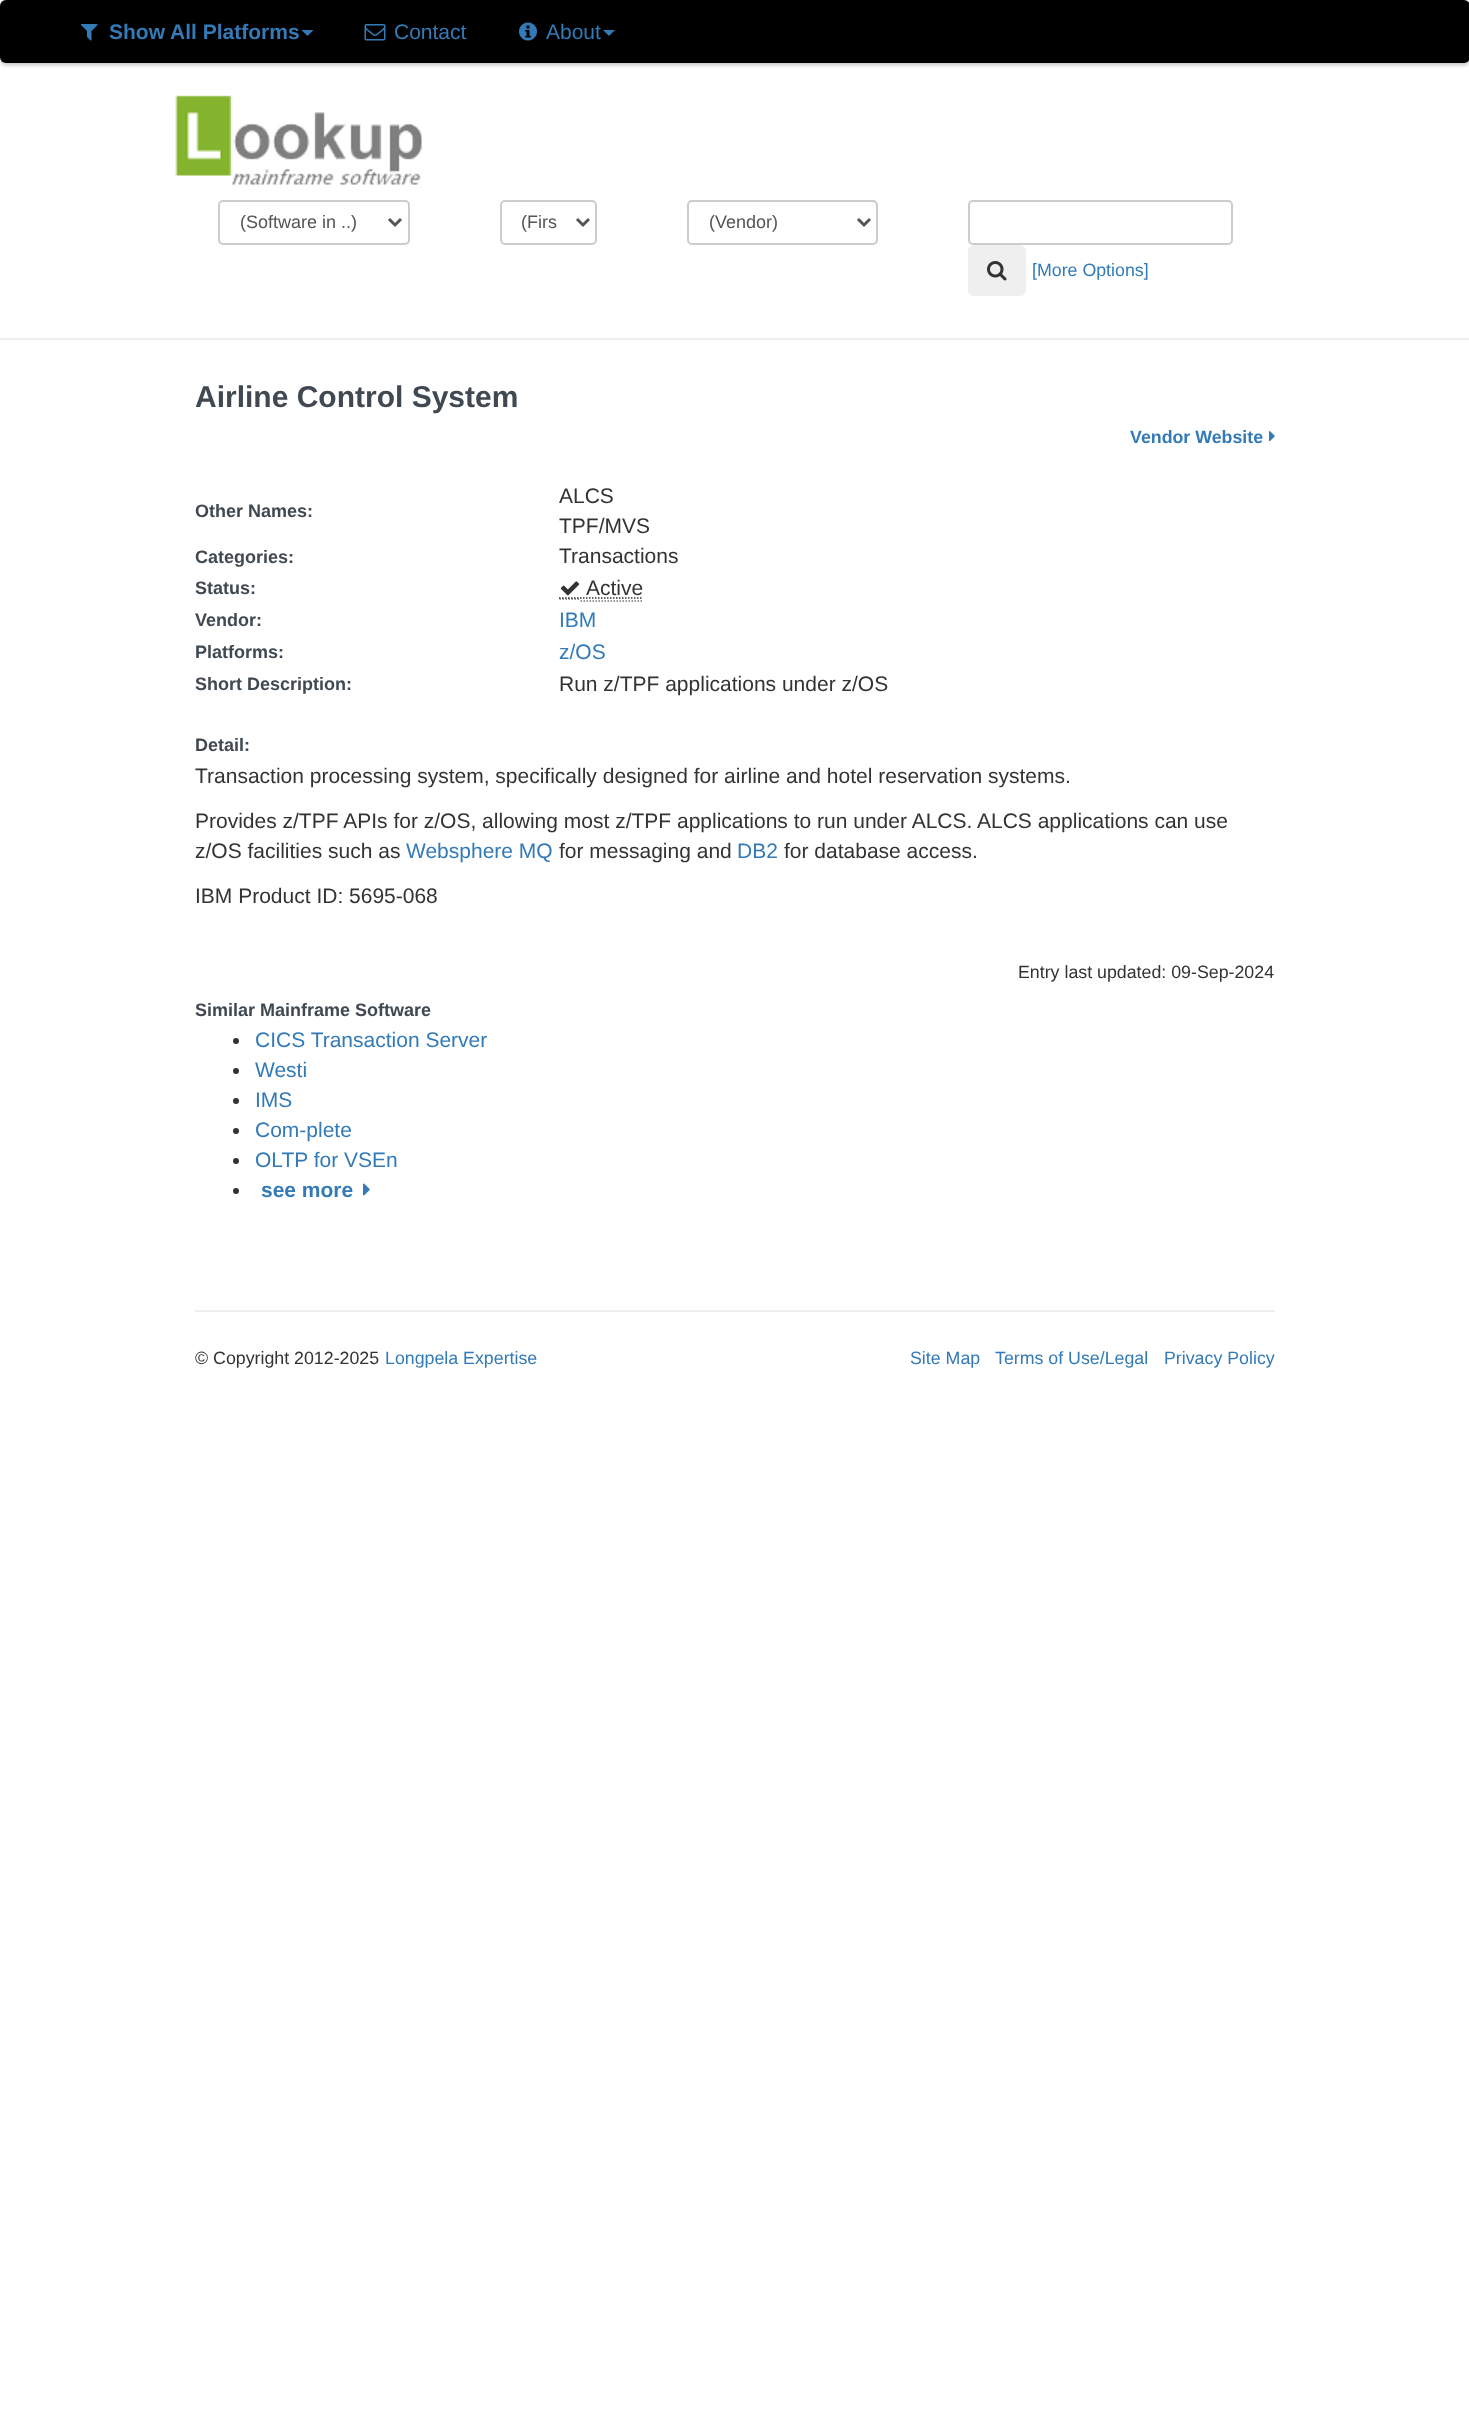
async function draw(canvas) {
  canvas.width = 1469
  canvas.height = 2409
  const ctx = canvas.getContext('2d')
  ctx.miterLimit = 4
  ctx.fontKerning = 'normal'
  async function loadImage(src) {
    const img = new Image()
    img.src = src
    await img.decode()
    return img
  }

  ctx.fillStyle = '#fff'
  ctx.fillRect(0, 0, 1469, 2409)
  ctx.fillStyle = '#00000040'
  ctx.filter = 'blur(2px)'
  ctx.beginPath()
  ctx.roundRect(0, 2, 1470, 63, 6)
  ctx.fill()
  ctx.filter = 'none'
  ctx.fillStyle = '#000'
  ctx.beginPath()
  ctx.roundRect(0, 0, 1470, 63, 6)
  ctx.fill()
  ctx.drawImage(await loadImage('image0.png'), 81, 24, 17, 17)
  ctx.font = 'bold 21px Liberation Sans'
  ctx.fillStyle = '#337ab7'
  ctx.fillText('Show All Platforms', 109, 39)
  ctx.beginPath()
  ctx.moveTo(301.5, 30)
  ctx.lineTo(313.5, 30)
  ctx.lineTo(307.5, 36)
  ctx.closePath()
  ctx.fill()
  ctx.drawImage(await loadImage('image1.png'), 364, 24, 22, 17)
  ctx.font = '21px Liberation Sans'
  ctx.fillText('Contact', 394, 39)
  ctx.drawImage(await loadImage('image2.png'), 519, 22, 18, 19)
  ctx.fillText('About', 546, 39)
  ctx.beginPath()
  ctx.moveTo(603, 30)
  ctx.lineTo(615, 30)
  ctx.lineTo(609, 36)
  ctx.closePath()
  ctx.fill()
  ctx.drawImage(await loadImage('image3.png'), 175, 95, 247, 90)
  ctx.beginPath()
  ctx.roundRect(219, 201, 190, 43, 4)
  ctx.strokeStyle = '#ccc'
  ctx.lineWidth = 2
  ctx.stroke()
  ctx.beginPath()
  ctx.moveTo(389, 219)
  ctx.lineTo(395, 225)
  ctx.lineTo(401, 219)
  ctx.strokeStyle = '#555'
  ctx.lineWidth = 3
  ctx.stroke()
  ctx.font = '18px Liberation Sans'
  ctx.fillStyle = '#555'
  ctx.fillText('(Software in ..)', 240, 228)
  ctx.beginPath()
  ctx.roundRect(501, 201, 95, 43, 4)
  ctx.strokeStyle = '#ccc'
  ctx.lineWidth = 2
  ctx.stroke()
  ctx.beginPath()
  ctx.moveTo(577, 219)
  ctx.lineTo(583, 225)
  ctx.lineTo(589, 219)
  ctx.strokeStyle = '#555'
  ctx.lineWidth = 3
  ctx.stroke()
  ctx.fillText('(Firs', 521, 228)
  ctx.fillStyle = '#ececec'
  ctx.beginPath()
  ctx.moveTo(692, 202)
  ctx.lineTo(873, 202)
  ctx.bezierCurveTo(875, 202, 876, 204, 876, 206)
  ctx.lineTo(876, 204)
  ctx.bezierCurveTo(876, 202, 875, 201, 873, 201)
  ctx.lineTo(692, 201)
  ctx.bezierCurveTo(691, 201, 689, 202, 689, 203)
  ctx.closePath()
  ctx.fill()
  ctx.beginPath()
  ctx.roundRect(688, 201, 189, 43, 4)
  ctx.strokeStyle = '#ccc'
  ctx.lineWidth = 2
  ctx.stroke()
  ctx.beginPath()
  ctx.moveTo(858, 219)
  ctx.lineTo(864, 225)
  ctx.lineTo(870, 219)
  ctx.strokeStyle = '#555'
  ctx.lineWidth = 3
  ctx.stroke()
  ctx.fillStyle = '#555'
  ctx.fillText('(Vendor)', 709, 228)
  ctx.beginPath()
  ctx.roundRect(969, 201, 263, 43, 4)
  ctx.strokeStyle = '#ccc'
  ctx.lineWidth = 2
  ctx.stroke()
  ctx.fillStyle = '#efefef'
  ctx.beginPath()
  ctx.roundRect(968, 245, 58, 51, 6)
  ctx.fill()
  ctx.drawImage(await loadImage('image4.png'), 987, 261, 20, 20)
  ctx.font = '17.8px Liberation Sans'
  ctx.fillStyle = '#337ab7'
  ctx.fillText('[More Options]', 1032, 276)
  ctx.fillStyle = '#eee'
  ctx.fillRect(0, 338, 1469, 2)
  ctx.font = 'bold 30px Liberation Sans'
  ctx.fillStyle = '#404952'
  ctx.fillText('Airline Control System', 195, 407)
  ctx.font = 'bold 17.8px Liberation Sans'
  ctx.fillStyle = '#337ab7'
  ctx.fillText('Vendor Website', 1130, 443)
  ctx.drawImage(await loadImage('image5.png'), 1269, 431, 6, 11)
  ctx.font = 'bold 18px Liberation Sans'
  ctx.fillStyle = '#404952'
  ctx.fillText('Other Names:', 195, 517)
  ctx.font = '21px Liberation Sans'
  ctx.fillStyle = '#333'
  ctx.fillText('ALCS', 559, 503)
  ctx.fillText('TPF/MVS', 559, 533)
  ctx.font = 'bold 18px Liberation Sans'
  ctx.fillStyle = '#404952'
  ctx.fillText('Categories:', 195, 563)
  ctx.font = '21px Liberation Sans'
  ctx.fillStyle = '#333'
  ctx.fillText('Transactions', 559, 563)
  ctx.font = 'bold 18px Liberation Sans'
  ctx.fillStyle = '#404952'
  ctx.fillText('Status:', 195, 594)
  ctx.beginPath()
  ctx.moveTo(559.5, 599)
  ctx.lineTo(580.5, 599)
  ctx.strokeStyle = '#777'
  ctx.lineWidth = 1.5
  ctx.setLineDash([1.5, 1.5])
  ctx.stroke()
  ctx.beginPath()
  ctx.moveTo(580.5, 601)
  ctx.lineTo(643.5, 601)
  ctx.stroke()
  ctx.beginPath()
  ctx.moveTo(559, 598)
  ctx.lineTo(580, 598)
  ctx.strokeStyle = '#333'
  ctx.stroke()
  ctx.drawImage(await loadImage('image6.png'), 560, 581, 20, 15)
  ctx.font = '21px Liberation Sans'
  ctx.fillStyle = '#333'
  ctx.fillText('Active', 586, 595)
  ctx.beginPath()
  ctx.moveTo(580, 598)
  ctx.lineTo(643, 598)
  ctx.stroke()
  ctx.font = 'bold 18px Liberation Sans'
  ctx.fillStyle = '#404952'
  ctx.fillText('Vendor:', 195, 626)
  ctx.font = '21px Liberation Sans'
  ctx.fillStyle = '#337ab7'
  ctx.fillText('IBM', 559, 627)
  ctx.font = 'bold 18px Liberation Sans'
  ctx.fillStyle = '#404952'
  ctx.fillText('Platforms:', 195, 658)
  ctx.font = '21px Liberation Sans'
  ctx.fillStyle = '#337ab7'
  ctx.fillText('z/OS', 559, 659)
  ctx.font = 'bold 18px Liberation Sans'
  ctx.fillStyle = '#404952'
  ctx.fillText('Short Description:', 195, 690)
  ctx.font = '21px Liberation Sans'
  ctx.fillStyle = '#333'
  ctx.fillText('Run z/TPF applications under z/OS', 559, 691)
  ctx.font = 'bold 18px Liberation Sans'
  ctx.fillStyle = '#404952'
  ctx.fillText('Detail:', 195, 751)
  ctx.font = '21px Liberation Sans'
  ctx.fillStyle = '#333'
  ctx.fillText('Transaction processing system, specifically designed for airline and hotel reservation systems.', 195, 783)
  ctx.fillText('Provides z/TPF APIs for z/OS, allowing most z/TPF applications to run under ALCS. ALCS applications can use', 195, 828)
  ctx.fillText('z/OS facilities such as', 195, 858)
  ctx.fillStyle = '#337ab7'
  ctx.fillText('Websphere MQ', 406, 858)
  ctx.fillStyle = '#333'
  ctx.fillText('for messaging and', 559, 858)
  ctx.fillStyle = '#337ab7'
  ctx.fillText('DB2', 737, 858)
  ctx.fillStyle = '#333'
  ctx.fillText('for database access.', 784, 858)
  ctx.fillText('IBM Product ID: 5695-068', 195, 903)
  ctx.font = '17.8px Liberation Sans'
  ctx.fillText('Entry last updated: 09-Sep-2024', 1018, 978)
  ctx.font = 'bold 18px Liberation Sans'
  ctx.fillStyle = '#404952'
  ctx.fillText('Similar Mainframe Software', 195, 1016)
  ctx.fillStyle = '#333'
  ctx.beginPath()
  ctx.arc(236, 1041, 3, 0, 2 * Math.PI)
  ctx.fill()
  ctx.font = '21px Liberation Sans'
  ctx.fillStyle = '#337ab7'
  ctx.fillText('CICS Transaction Server', 255, 1047)
  ctx.fillStyle = '#333'
  ctx.beginPath()
  ctx.arc(236, 1071, 3, 0, 2 * Math.PI)
  ctx.fill()
  ctx.fillStyle = '#337ab7'
  ctx.fillText('Westi', 255, 1077)
  ctx.fillStyle = '#333'
  ctx.beginPath()
  ctx.arc(236, 1101, 3, 0, 2 * Math.PI)
  ctx.fill()
  ctx.fillStyle = '#337ab7'
  ctx.fillText('IMS', 255, 1107)
  ctx.fillStyle = '#333'
  ctx.beginPath()
  ctx.arc(236, 1131, 3, 0, 2 * Math.PI)
  ctx.fill()
  ctx.fillStyle = '#337ab7'
  ctx.fillText('Com-plete', 255, 1137)
  ctx.fillStyle = '#333'
  ctx.beginPath()
  ctx.arc(236, 1161, 3, 0, 2 * Math.PI)
  ctx.fill()
  ctx.fillStyle = '#337ab7'
  ctx.fillText('OLTP for VSEn', 255, 1167)
  ctx.fillStyle = '#333'
  ctx.beginPath()
  ctx.arc(236, 1191, 3, 0, 2 * Math.PI)
  ctx.fill()
  ctx.font = 'bold 21px Liberation Sans'
  ctx.fillStyle = '#337ab7'
  ctx.fillText('see more', 261, 1197)
  ctx.drawImage(await loadImage('image7.png'), 363, 1183, 7, 13)
  ctx.fillStyle = '#eee'
  ctx.fillRect(195, 1310, 1080, 2)
  ctx.font = '17.8px Liberation Sans'
  ctx.fillStyle = '#333'
  ctx.fillText('© Copyright 2012-2025', 195, 1364)
  ctx.fillStyle = '#337ab7'
  ctx.fillText('Longpela Expertise', 385, 1364)
  ctx.fillText('Site Map', 910, 1364)
  ctx.fillText('Terms of Use/Legal', 995, 1364)
  ctx.fillText('Privacy Policy', 1164, 1364)
}

draw(document.querySelector('canvas'))
